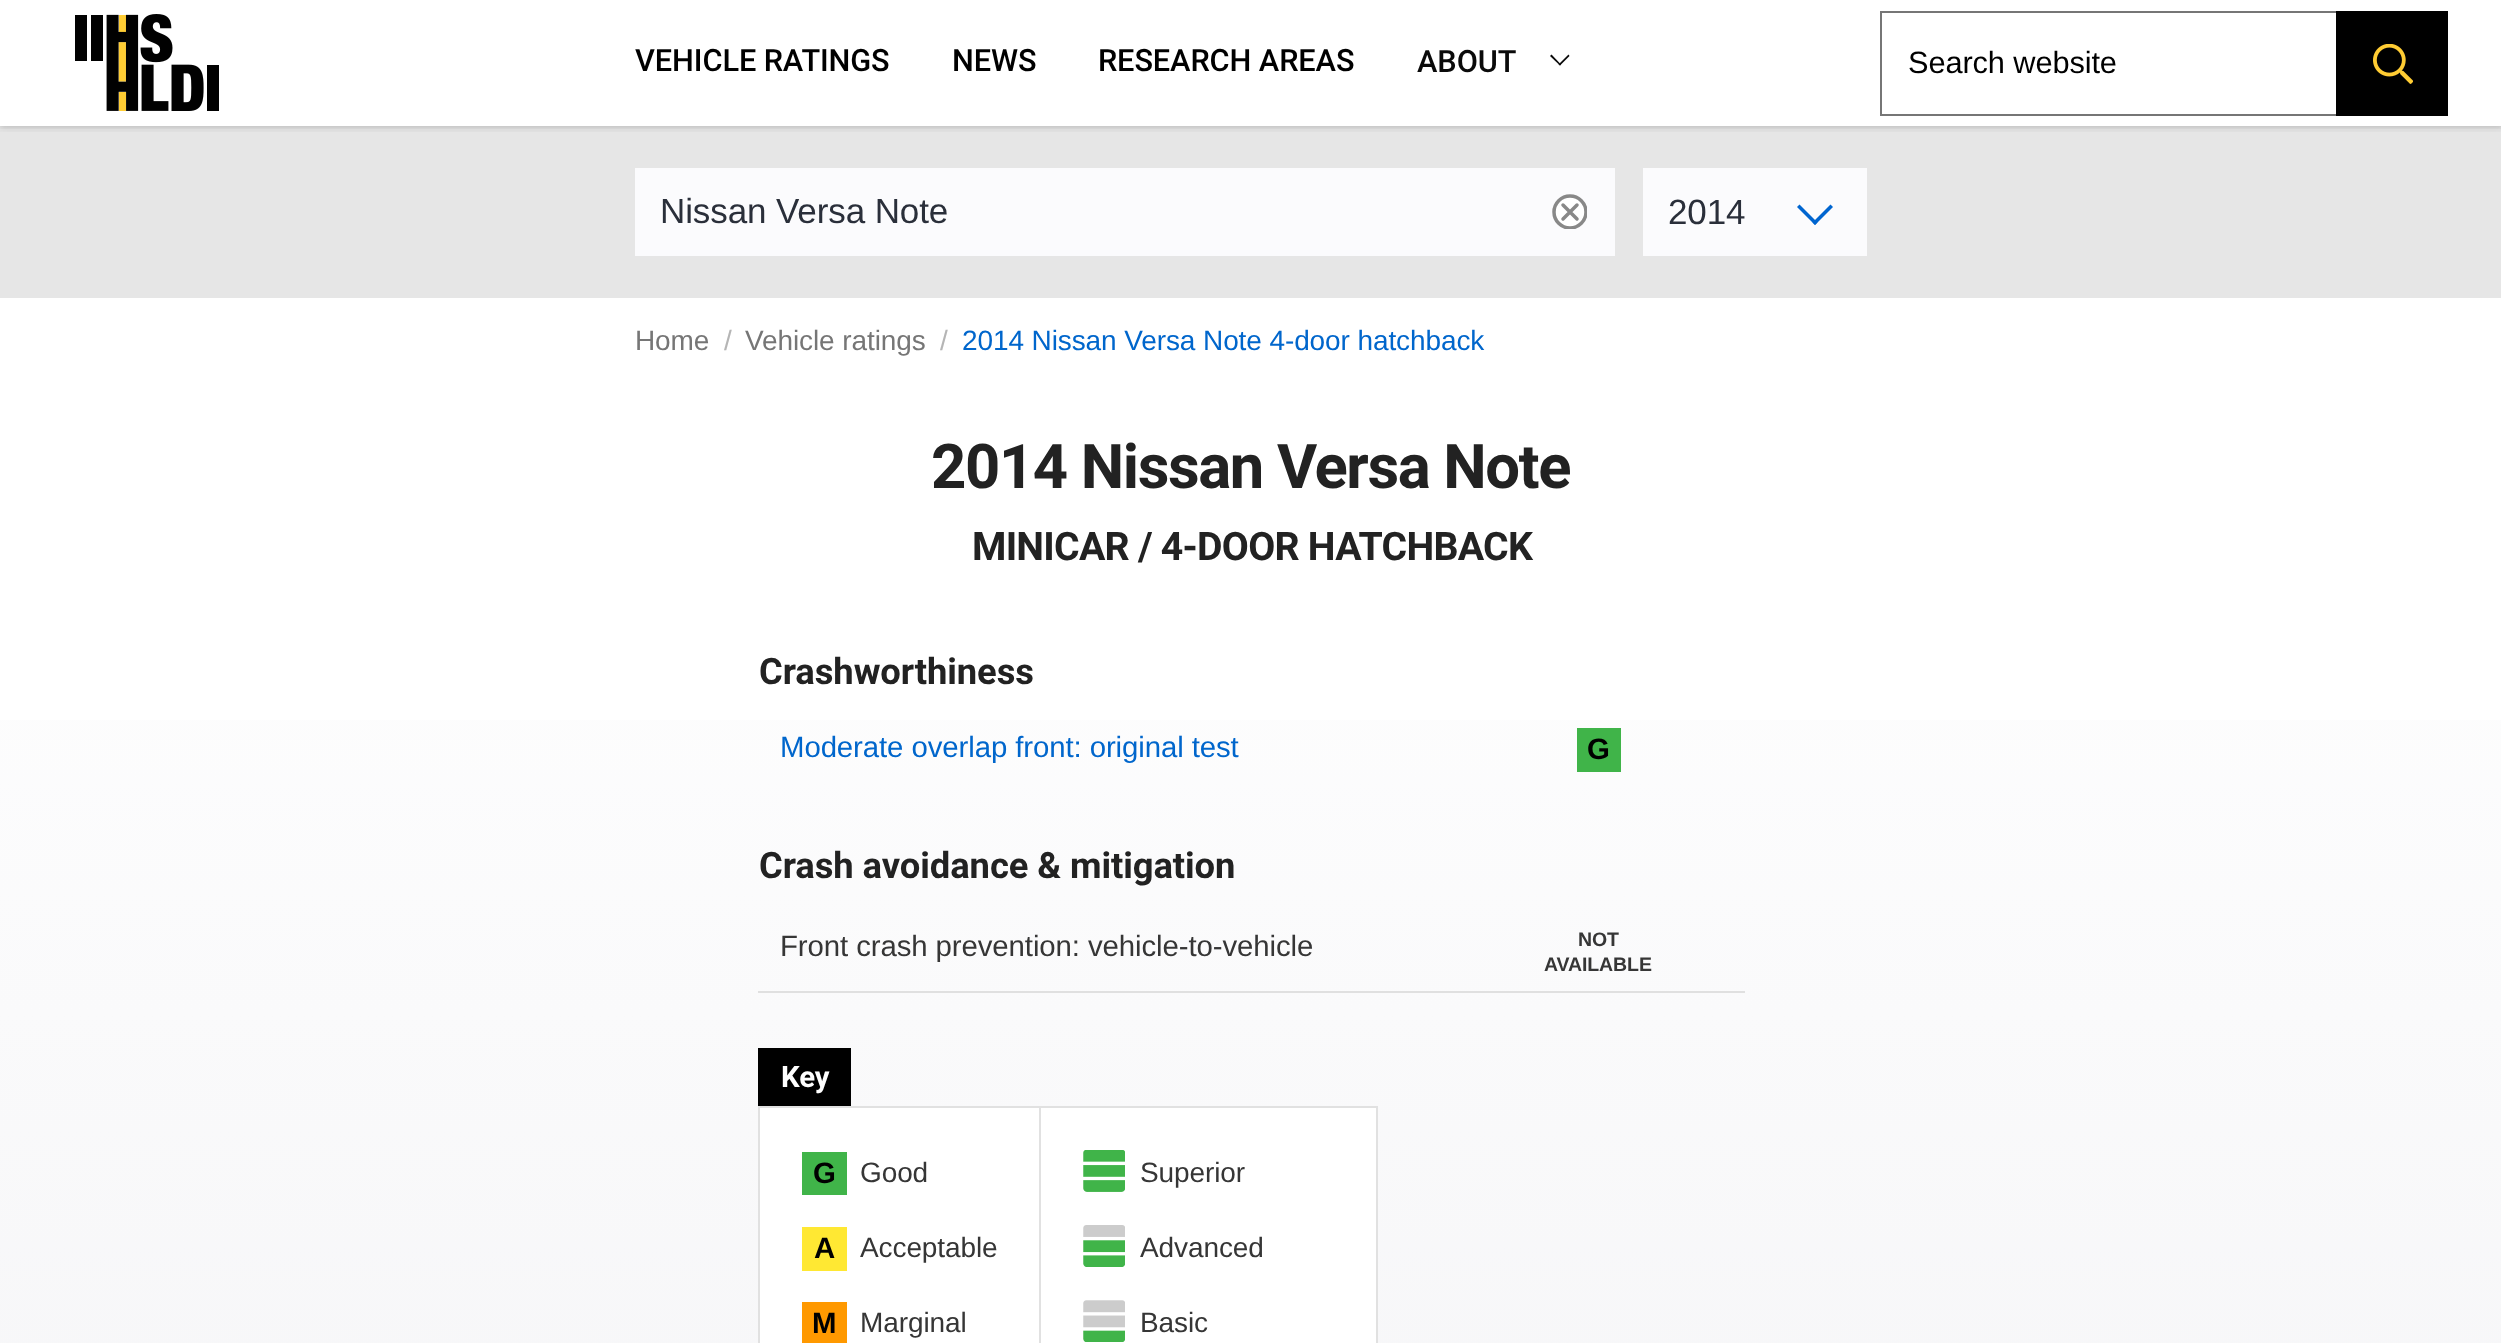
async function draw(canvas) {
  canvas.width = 2501
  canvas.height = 1343
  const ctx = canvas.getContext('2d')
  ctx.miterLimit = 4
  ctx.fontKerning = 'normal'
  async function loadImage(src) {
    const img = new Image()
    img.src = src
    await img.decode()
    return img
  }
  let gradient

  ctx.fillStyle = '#fff'
  ctx.fillRect(0, 0, 2501, 1343)
  ctx.fillStyle = '#e6e6e6'
  ctx.fillRect(0, 126, 2501, 172)
  ctx.save()
  ctx.beginPath()
  ctx.rect(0, 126, 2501, 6)
  ctx.clip()
  ctx.fillStyle = '#1a1a1d14'
  ctx.filter = 'blur(3.5px)'
  ctx.beginPath()
  ctx.rect(0, 4, 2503, 126)
  ctx.fill()
  ctx.filter = 'none'
  ctx.restore()
  ctx.save()
  ctx.beginPath()
  ctx.rect(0, 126, 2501, 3)
  ctx.clip()
  ctx.fillStyle = '#00000014'
  ctx.filter = 'blur(2px)'
  ctx.beginPath()
  ctx.rect(0, 2, 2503, 126)
  ctx.fill()
  ctx.filter = 'none'
  ctx.restore()
  ctx.drawImage(await loadImage('image0.png'), 75, 14, 144, 97)
  ctx.letterSpacing = '-0.1px'
  ctx.font = '500 30.75px Roboto'
  ctx.fillStyle = '#000'
  ctx.fillText('VEHICLE RATINGS', 635, 71)
  ctx.fillText('NEWS', 952, 71)
  ctx.fillText('RESEARCH AREAS', 1098, 71)
  ctx.fillStyle = '#0a0a0a'
  ctx.fillText('ABOUT', 1417, 72)
  ctx.beginPath()
  ctx.moveTo(1569.5, 56)
  ctx.lineTo(1560, 65.5)
  ctx.lineTo(1558.5, 64.5)
  ctx.lineTo(1568.5, 54.5)
  ctx.closePath()
  ctx.fill()
  ctx.beginPath()
  ctx.moveTo(1561, 64.5)
  ctx.lineTo(1560, 65.5)
  ctx.lineTo(1550, 56)
  ctx.lineTo(1551.5, 54.5)
  ctx.closePath()
  ctx.fill()
  ctx.strokeStyle = '#767676'
  ctx.lineWidth = 2
  ctx.strokeRect(1881, 12, 566, 103)
  ctx.font = '30.75px Liberation Sans'
  ctx.fillStyle = '#000'
  ctx.fillText('Search website', 1908, 73)
  ctx.fillRect(2336, 11, 112, 105)
  ctx.drawImage(await loadImage('image1.png'), 2373, 44, 40, 40)
  ctx.fillStyle = '#fbfbfd'
  ctx.fillRect(635, 168, 980, 88)
  ctx.font = '35px Liberation Sans'
  ctx.fillStyle = '#2a2f3a'
  ctx.fillText('Nissan Versa Note', 660, 223)
  ctx.fillStyle = '#fff'
  ctx.beginPath()
  ctx.arc(1570, 212, 16, 0, 2 * Math.PI)
  ctx.fill()
  ctx.save()
  ctx.beginPath()
  ctx.rect(1552, 194, 35, 35)
  ctx.clip()
  ctx.beginPath()
  ctx.arc(1570, 212, 16, 0, 2 * Math.PI)
  ctx.strokeStyle = '#888'
  ctx.lineWidth = 3.5
  ctx.stroke()
  ctx.restore()
  ctx.beginPath()
  ctx.moveTo(1563, 205)
  ctx.lineTo(1577, 219)
  ctx.moveTo(1577, 205)
  ctx.lineTo(1563, 219)
  ctx.strokeStyle = '#888'
  ctx.lineWidth = 3.5
  ctx.lineCap = 'round'
  ctx.stroke()
  ctx.fillStyle = '#fbfbfd'
  ctx.fillRect(1643, 168, 224, 88)
  ctx.fillStyle = '#2a2f3a'
  ctx.fillText('2014', 1668, 224)
  ctx.fillStyle = '#0065d0'
  ctx.beginPath()
  ctx.moveTo(1812.5, 222.5)
  ctx.lineTo(1830.5, 204.5)
  ctx.lineTo(1833, 207)
  ctx.lineTo(1815, 225)
  ctx.closePath()
  ctx.fill()
  ctx.beginPath()
  ctx.moveTo(1797, 207)
  ctx.lineTo(1799.5, 204.5)
  ctx.lineTo(1817.5, 222.5)
  ctx.lineTo(1815, 225)
  ctx.closePath()
  ctx.fill()
  ctx.font = '28px Liberation Sans'
  ctx.fillStyle = '#767676'
  ctx.fillText('Home', 635, 350)
  ctx.fillStyle = '#b5b5b5'
  ctx.fillText('/', 724, 350)
  ctx.fillStyle = '#767676'
  ctx.fillText('Vehicle ratings', 745, 350)
  ctx.fillStyle = '#b5b5b5'
  ctx.fillText('/', 940, 350)
  ctx.fillStyle = '#06c'
  ctx.fillText('2014 Nissan Versa Note 4-door hatchback', 962, 350)
  gradient = ctx.createLinearGradient(1251, 429, 1251, 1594)
  gradient.addColorStop(0, '#fff')
  gradient.addColorStop(1, '#f5f5f7')
  ctx.fillStyle = gradient
  ctx.fillRect(0, 720, 2501, 623)
  ctx.letterSpacing = '-1.4px'
  ctx.font = 'bold 61.6px Roboto'
  ctx.fillStyle = '#222'
  ctx.fillText('2014 Nissan Versa Note', 931, 488)
  ctx.letterSpacing = '-0.75px'
  ctx.font = 'bold 39.25px Roboto'
  ctx.fillText('MINICAR / 4-DOOR HATCHBACK', 972, 560)
  ctx.letterSpacing = '-0.1px'
  ctx.font = 'bold 36.4px Roboto'
  ctx.fillText('Crashworthiness', 759, 684)
  ctx.font = '29.4px Liberation Sans'
  ctx.fillStyle = '#06c'
  ctx.fillText('Moderate overlap front: original test', 780, 757)
  ctx.fillStyle = '#40b449'
  ctx.fillRect(1577, 728, 44, 44)
  ctx.font = 'bold 29.4px Liberation Sans'
  ctx.fillStyle = '#000'
  ctx.fillText('G', 1587, 759)
  ctx.font = 'bold 36.4px Roboto'
  ctx.fillStyle = '#222'
  ctx.fillText('Crash avoidance & mitigation', 759, 878)
  ctx.font = '29.4px Liberation Sans'
  ctx.fillStyle = '#363636'
  ctx.fillText('Front crash prevention: vehicle-to-vehicle', 780, 956)
  ctx.fillStyle = '#e0e0e0'
  ctx.fillRect(758, 991, 987, 2)
  ctx.font = 'bold 19.5px Liberation Sans'
  ctx.fillStyle = '#363636'
  ctx.fillText('NOT', 1578, 946)
  ctx.fillText('AVAILABLE', 1544, 971)
  ctx.fillStyle = '#000'
  ctx.fillRect(758, 1048, 93, 58)
  ctx.font = 'bold 29.4px Roboto'
  ctx.fillStyle = '#fff'
  ctx.fillText('Key', 781, 1087)
  ctx.beginPath()
  ctx.rect(759, 1107, 281, 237)
  ctx.fill()
  ctx.strokeStyle = '#e1e1e1'
  ctx.lineWidth = 2
  ctx.stroke()
  ctx.fillStyle = '#40b449'
  ctx.fillRect(802, 1152, 45, 43)
  ctx.font = 'bold 29.4px Liberation Sans'
  ctx.fillStyle = '#000'
  ctx.fillText('G', 813, 1183)
  ctx.font = '28px Liberation Sans'
  ctx.fillStyle = '#363636'
  ctx.fillText('Good', 860, 1182)
  ctx.fillStyle = '#ffe833'
  ctx.fillRect(802, 1227, 45, 44)
  ctx.font = 'bold 29.4px Liberation Sans'
  ctx.fillStyle = '#000'
  ctx.fillText('A', 814, 1258)
  ctx.font = '28px Liberation Sans'
  ctx.fillStyle = '#363636'
  ctx.fillText('Acceptable', 860, 1257)
  ctx.fillStyle = '#f90'
  ctx.fillRect(802, 1302, 45, 41)
  ctx.font = 'bold 29.4px Liberation Sans'
  ctx.fillStyle = '#000'
  ctx.fillText('M', 812, 1333)
  ctx.font = '28px Liberation Sans'
  ctx.fillStyle = '#363636'
  ctx.fillText('Marginal', 860, 1332)
  ctx.fillStyle = '#fff'
  ctx.fillRect(1041, 1108, 335, 235)
  ctx.fillStyle = '#e1e1e1'
  ctx.fillRect(1041, 1106, 336, 2)
  ctx.fillRect(1376, 1106, 2, 237)
  ctx.drawImage(await loadImage('image2.png'), 1083, 1150, 42, 42)
  ctx.fillStyle = '#363636'
  ctx.fillText('Superior', 1140, 1182)
  ctx.drawImage(await loadImage('image3.png'), 1083, 1225, 42, 42)
  ctx.fillText('Advanced', 1140, 1257)
  ctx.drawImage(await loadImage('image4.png'), 1083, 1300, 42, 42)
  ctx.fillText('Basic', 1140, 1332)
}

draw(document.querySelector('canvas'))
